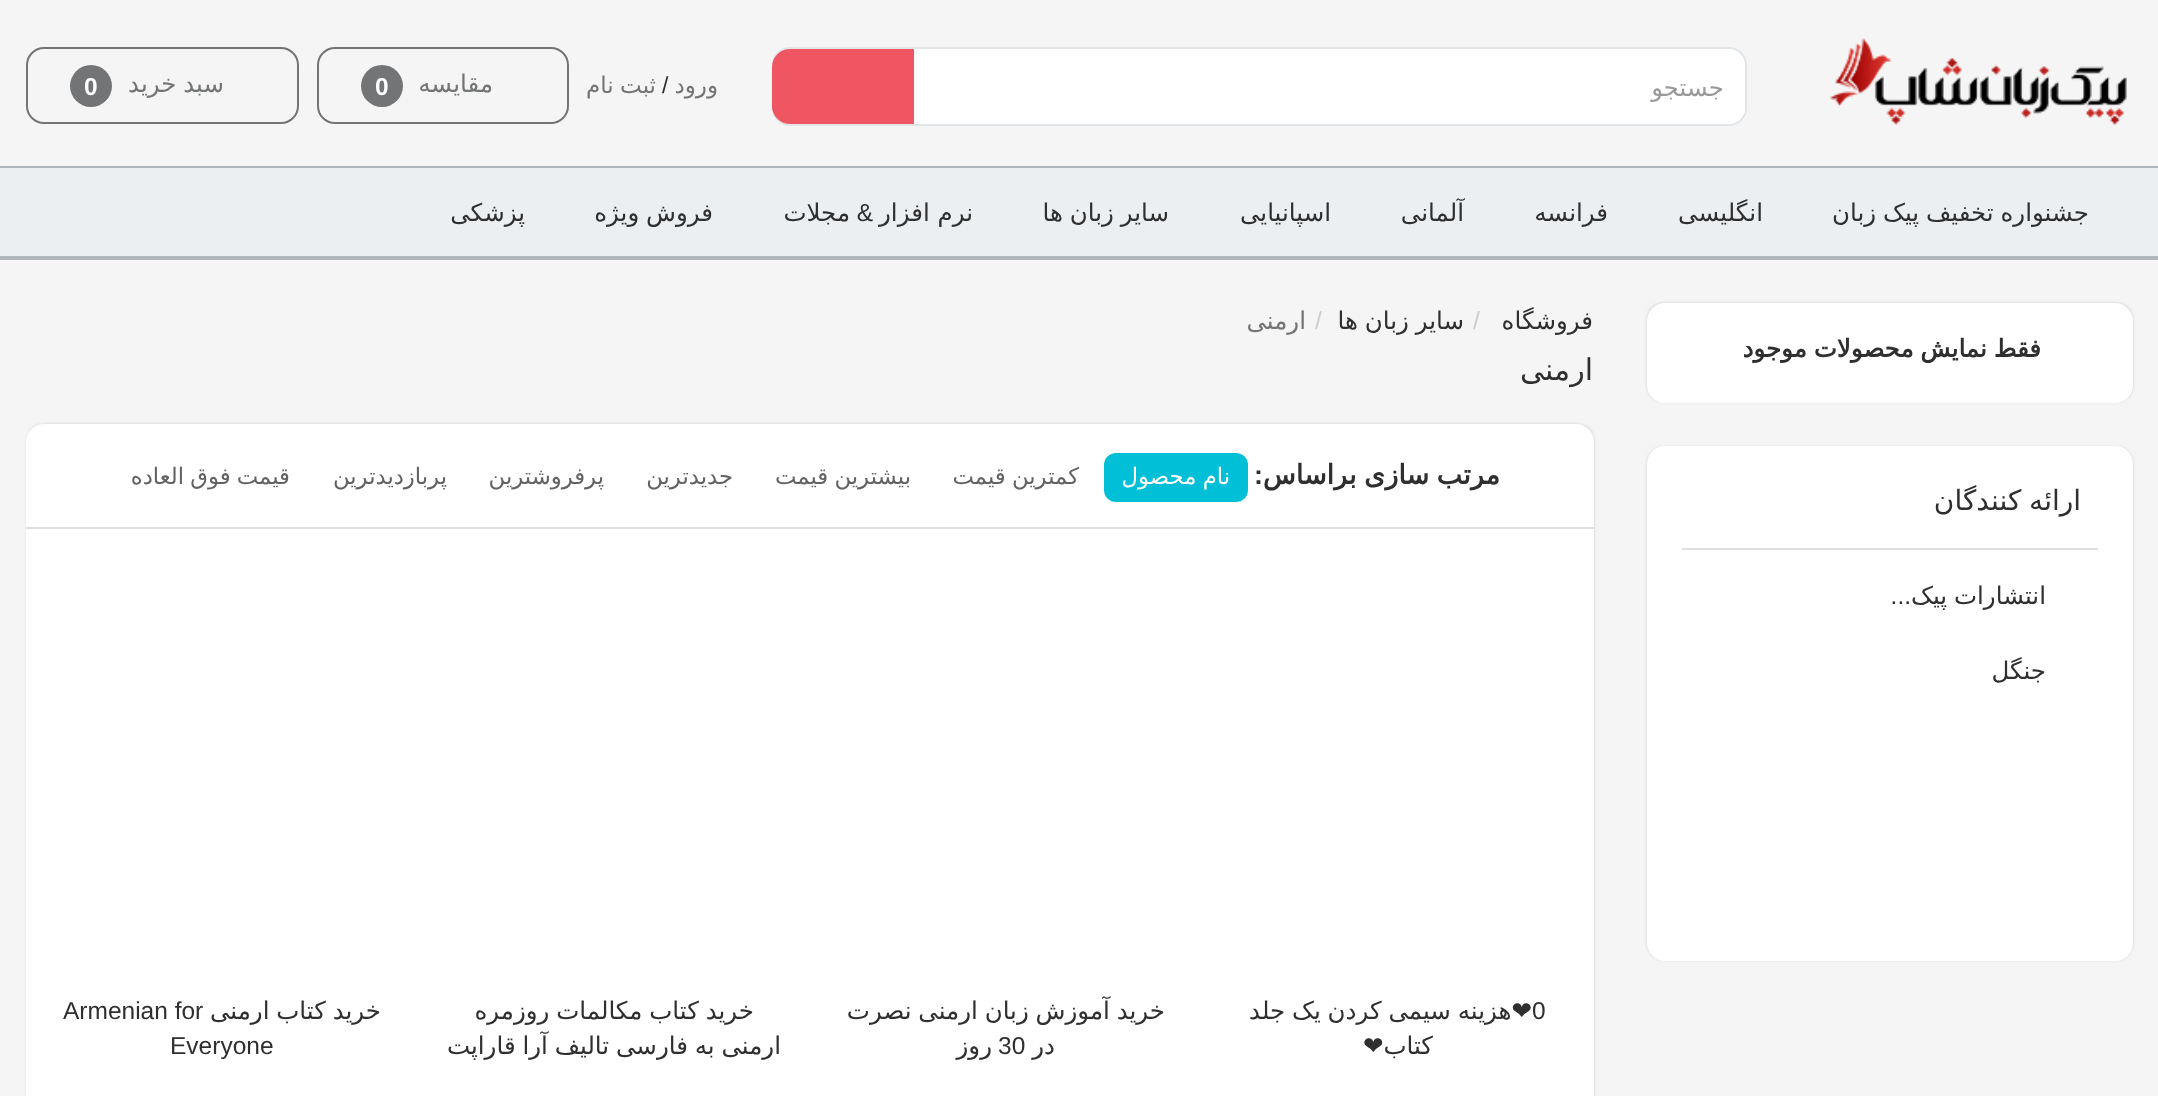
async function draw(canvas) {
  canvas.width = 2158
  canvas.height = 1096
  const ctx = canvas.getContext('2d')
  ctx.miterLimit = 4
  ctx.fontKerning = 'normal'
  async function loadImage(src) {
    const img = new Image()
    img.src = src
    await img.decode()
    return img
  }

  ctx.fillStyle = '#f5f5f5'
  ctx.fillRect(0, 0, 2158, 1096)
  ctx.drawImage(await loadImage('image0.png'), 1830, 38, 297, 87)
  ctx.fillStyle = '#fff'
  ctx.beginPath()
  ctx.roundRect(773, 48, 973, 77, 17)
  ctx.fill()
  ctx.strokeStyle = '#e1e5e8'
  ctx.lineWidth = 2
  ctx.stroke()
  ctx.beginPath()
  ctx.roundRect(912, 58, 833, 59, [0, 7, 7, 0])
  ctx.fill()
  ctx.direction = 'rtl'
  ctx.font = '24.5px DejaVu Sans'
  ctx.fillStyle = '#999'
  ctx.fillText('جستجو', 1724, 96)
  ctx.fillStyle = '#ef5661'
  ctx.beginPath()
  ctx.roundRect(772, 49, 142, 75, [18, 0, 0, 18])
  ctx.fill()
  ctx.font = '23px DejaVu Sans'
  ctx.fillStyle = '#727476'
  ctx.fillText('ورود', 718, 93)
  ctx.direction = 'ltr'
  ctx.font = '23px Liberation Sans'
  ctx.fillStyle = '#2f2f2f'
  ctx.fillText('/', 662, 93)
  ctx.wordSpacing = '-1px'
  ctx.direction = 'rtl'
  ctx.font = '23px DejaVu Sans'
  ctx.fillStyle = '#727476'
  ctx.fillText('ثبت نام', 656, 93)
  ctx.beginPath()
  ctx.roundRect(318, 48, 250, 75, 17)
  ctx.strokeStyle = '#727476'
  ctx.stroke()
  ctx.wordSpacing = '0px'
  ctx.font = '24.5px DejaVu Sans'
  ctx.fillText('مقایسه', 493, 92)
  ctx.beginPath()
  ctx.arc(382, 86, 21, 0, 2 * Math.PI)
  ctx.fill()
  ctx.direction = 'ltr'
  ctx.font = 'bold 24.5px Liberation Sans'
  ctx.fillStyle = '#fff'
  ctx.fillText('0', 375, 95)
  ctx.beginPath()
  ctx.roundRect(27, 48, 271, 75, 17)
  ctx.stroke()
  ctx.wordSpacing = '-1px'
  ctx.direction = 'rtl'
  ctx.font = '24.5px DejaVu Sans'
  ctx.fillStyle = '#727476'
  ctx.fillText('سبد خرید', 224, 92)
  ctx.beginPath()
  ctx.arc(91, 86, 21, 0, 2 * Math.PI)
  ctx.fill()
  ctx.wordSpacing = '0px'
  ctx.direction = 'ltr'
  ctx.font = 'bold 24.5px Liberation Sans'
  ctx.fillStyle = '#fff'
  ctx.fillText('0', 84, 95)
  ctx.fillStyle = '#eceff1'
  ctx.fillRect(0, 168, 2158, 88)
  ctx.fillStyle = '#b0b7bb'
  ctx.fillRect(0, 166, 2158, 2)
  ctx.fillRect(0, 256, 2158, 4)
  ctx.wordSpacing = '-1px'
  ctx.direction = 'rtl'
  ctx.font = '24.5px DejaVu Sans'
  ctx.fillStyle = '#2f2f2f'
  ctx.fillText('جشنواره تخفیف پیک زبان', 2089, 221)
  ctx.wordSpacing = '0px'
  ctx.fillText('انگلیسی', 1763, 221)
  ctx.fillText('فرانسه', 1608, 221)
  ctx.fillText('آلمانی', 1464, 221)
  ctx.fillText('اسپانیایی', 1331, 221)
  ctx.wordSpacing = '-1px'
  ctx.fillText('سایر زبان ها', 1169, 221)
  ctx.wordSpacing = '0px'
  ctx.fillText('نرم افزار', 973, 221)
  ctx.font = '24.5px Liberation Sans'
  ctx.fillText('&', 873, 221)
  ctx.font = '24.5px DejaVu Sans'
  ctx.fillText('مجلات', 850, 221)
  ctx.wordSpacing = '-1px'
  ctx.fillText('فروش ویژه', 713, 221)
  ctx.wordSpacing = '0px'
  ctx.fillText('پزشکی', 525, 221)
  ctx.fillStyle = '#000000bf'
  ctx.filter = 'blur(2.5px)'
  ctx.beginPath()
  ctx.roundRect(1650, 306, 480, 93, 14)
  ctx.fill()
  ctx.filter = 'none'
  ctx.fillStyle = '#fff'
  ctx.beginPath()
  ctx.roundRect(1647, 303, 486, 100, 18)
  ctx.fill()
  ctx.wordSpacing = '-1px'
  ctx.font = 'bold 24.5px DejaVu Sans'
  ctx.fillStyle = '#2f2f2f'
  ctx.fillText('فقط نمایش محصولات موجود', 2041, 357)
  ctx.fillStyle = '#000000bf'
  ctx.filter = 'blur(2.5px)'
  ctx.beginPath()
  ctx.roundRect(1650, 450, 480, 507, 14)
  ctx.fill()
  ctx.filter = 'none'
  ctx.fillStyle = '#fff'
  ctx.beginPath()
  ctx.roundRect(1647, 446, 486, 515, 18)
  ctx.fill()
  ctx.fillStyle = '#dfdfdf'
  ctx.fillRect(1682, 548, 416, 2)
  ctx.font = '28px DejaVu Sans'
  ctx.fillStyle = '#2f2f2f'
  ctx.fillText('ارائه کنندگان', 2081, 510)
  ctx.font = '24.5px DejaVu Sans'
  ctx.fillText('انتشارات پیک', 2046, 604)
  ctx.wordSpacing = '0px'
  ctx.font = '24.5px Liberation Sans'
  ctx.fillText('...', 1911, 604)
  ctx.font = '24.5px DejaVu Sans'
  ctx.fillText('جنگل', 2046, 679)
  ctx.fillText('فروشگاه', 1593, 329)
  ctx.direction = 'ltr'
  ctx.font = '24.5px Liberation Sans'
  ctx.fillStyle = '#ccc'
  ctx.fillText('/', 1473, 329)
  ctx.wordSpacing = '-1px'
  ctx.direction = 'rtl'
  ctx.font = '24.5px DejaVu Sans'
  ctx.fillStyle = '#2f2f2f'
  ctx.fillText('سایر زبان ها', 1464, 329)
  ctx.wordSpacing = '0px'
  ctx.direction = 'ltr'
  ctx.font = '24.5px Liberation Sans'
  ctx.fillStyle = '#ccc'
  ctx.fillText('/', 1315, 329)
  ctx.direction = 'rtl'
  ctx.font = '24.5px DejaVu Sans'
  ctx.fillStyle = '#727476'
  ctx.fillText('ارمنی', 1306, 329)
  ctx.font = '30px DejaVu Sans'
  ctx.fillStyle = '#2f2f2f'
  ctx.fillText('ارمنی', 1593, 380)
  ctx.fillStyle = '#000000bf'
  ctx.filter = 'blur(2.5px)'
  ctx.beginPath()
  ctx.roundRect(30, 427, 1561, 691, 14)
  ctx.fill()
  ctx.filter = 'none'
  ctx.fillStyle = '#fff'
  ctx.beginPath()
  ctx.roundRect(26, 424, 1568, 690, 18)
  ctx.fill()
  ctx.fillStyle = '#dfdfdf'
  ctx.fillRect(26, 527, 1568, 2)
  ctx.wordSpacing = '-1px'
  ctx.font = 'bold 27px DejaVu Sans'
  ctx.fillStyle = '#2f2f2f'
  ctx.fillText('مرتب سازی براساس', 1500, 484)
  ctx.wordSpacing = '0px'
  ctx.font = 'bold 27px Liberation Sans'
  ctx.fillText(':', 1263, 484)
  ctx.fillStyle = '#00bfd6'
  ctx.beginPath()
  ctx.roundRect(1104, 453, 144, 49, 12)
  ctx.fill()
  ctx.wordSpacing = '-1px'
  ctx.font = '22.75px DejaVu Sans'
  ctx.fillStyle = '#fff'
  ctx.fillText('نام محصول', 1230, 484)
  ctx.fillStyle = '#626262'
  ctx.fillText('کمترین قیمت', 1079, 484)
  ctx.fillText('بیشترین قیمت', 911, 484)
  ctx.wordSpacing = '0px'
  ctx.fillText('جدیدترین', 733, 484)
  ctx.fillText('پرفروشترین', 604, 484)
  ctx.fillText('پربازدیدترین', 447, 484)
  ctx.wordSpacing = '-1px'
  ctx.fillText('قیمت فوق العاده', 290, 484)
  ctx.wordSpacing = '0px'
  ctx.direction = 'ltr'
  ctx.font = '24.5px Liberation Sans'
  ctx.fillStyle = '#2f2f2f'
  ctx.fillText('0', 1532, 1019)
  ctx.wordSpacing = '-1px'
  ctx.direction = 'rtl'
  ctx.font = '24.5px DejaVu Sans'
  ctx.fillText('❤هزینه سیمی کردن یک جلد', 1532, 1019)
  ctx.wordSpacing = '0px'
  ctx.fillText('کتاب❤', 1433, 1054)
  ctx.wordSpacing = '-1px'
  ctx.fillText('خرید آموزش زبان ارمنی نصرت', 1165, 1019)
  ctx.wordSpacing = '0px'
  ctx.fillText('در', 1055, 1054)
  ctx.direction = 'ltr'
  ctx.font = '24.5px Liberation Sans'
  ctx.fillText('30', 998, 1054)
  ctx.direction = 'rtl'
  ctx.font = '24.5px DejaVu Sans'
  ctx.fillText('روز', 992, 1054)
  ctx.wordSpacing = '-1px'
  ctx.fillText('خرید كتاب مکالمات روزمره', 754, 1019)
  ctx.fillText('ارمنی به فارسی تالیف آرا قاراپت', 781, 1054)
  ctx.fillText('خرید کتاب ارمنی', 381, 1019)
  ctx.wordSpacing = '0px'
  ctx.direction = 'ltr'
  ctx.font = '24.5px Liberation Sans'
  ctx.fillText('Armenian for', 63, 1019)
  ctx.fillText('Everyone', 170, 1054)
}

draw(document.querySelector('canvas'))
